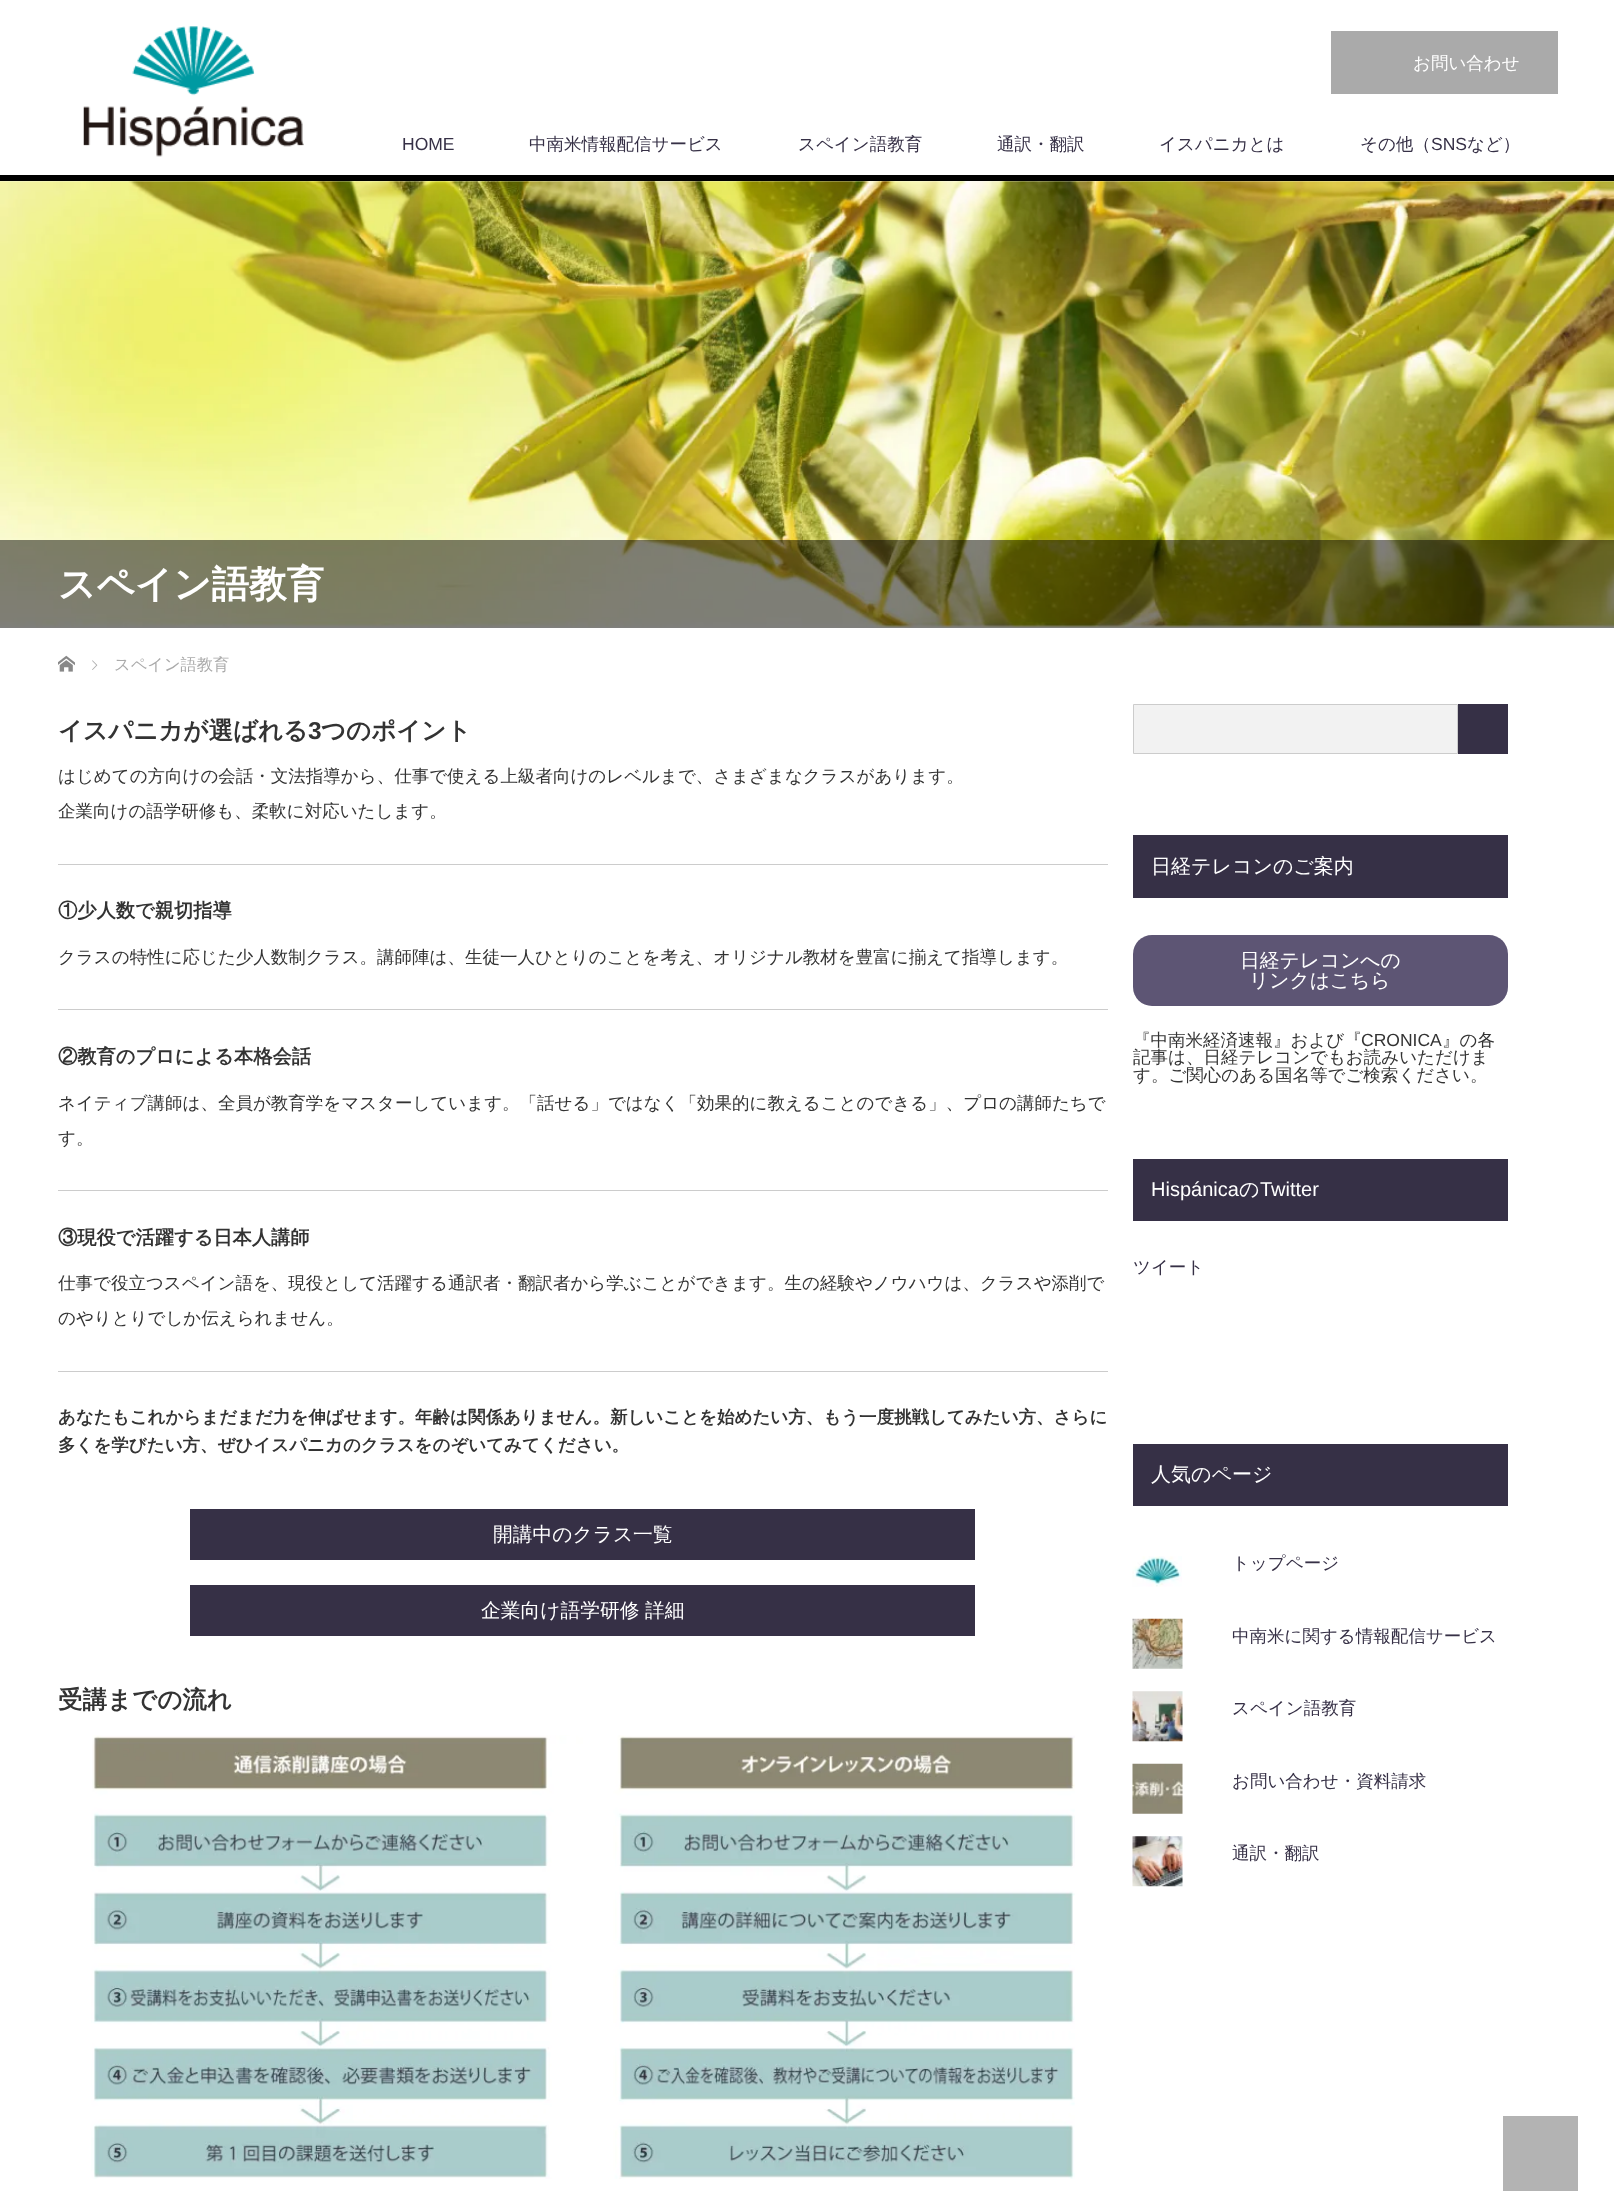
async function draw(canvas) {
  canvas.width = 1614
  canvas.height = 2191
  const ctx = canvas.getContext('2d')
  ctx.miterLimit = 4
  ctx.fontKerning = 'normal'
  async function loadImage(src) {
    const img = new Image()
    img.src = src
    await img.decode()
    return img
  }

  ctx.fillStyle = '#fff'
  ctx.fillRect(0, 0, 1614, 2191)
  ctx.fillStyle = '#000'
  ctx.fillRect(0, 175, 1614, 6)
  ctx.drawImage(await loadImage('image0.png'), 83, 26, 221, 131)
  ctx.fillStyle = '#aaa'
  ctx.fillRect(1331, 31, 227, 63)
  ctx.font = '500 17.5px WenQuanYi Zen Hei'
  ctx.fillStyle = '#fff'
  ctx.fillText('お問い合わせ', 1413, 69)
  ctx.font = '17.5px Liberation Sans'
  ctx.fillStyle = '#363046'
  ctx.fillText('HOME', 402, 150)
  ctx.font = '500 17.5px WenQuanYi Zen Hei'
  ctx.fillText('中南米情報配信サービス', 529, 150)
  ctx.fillText('スペイン語教育', 798, 150)
  ctx.fillText('通訳・翻訳', 997, 150)
  ctx.fillText('イスパニカとは', 1159, 150)
  ctx.fillText('その他（', 1360, 150)
  ctx.font = '17.5px Liberation Sans'
  ctx.fillText('SNS', 1431, 150)
  ctx.font = '500 17.5px WenQuanYi Zen Hei'
  ctx.fillText('など）', 1467, 150)
  ctx.drawImage(await loadImage('image1.png'), 0, 181, 1614, 447)
  ctx.fillStyle = '#00000080'
  ctx.fillRect(0, 540, 1614, 88)
  ctx.font = 'bold 37.5px WenQuanYi Zen Hei'
  ctx.fillStyle = '#fff'
  ctx.fillText('スペイン語教育', 58, 597)
  ctx.drawImage(await loadImage('image2.png'), 58, 655, 17, 17)
  ctx.drawImage(await loadImage('image3.png'), 92, 660, 6, 10)
  ctx.font = '500 16.25px WenQuanYi Zen Hei'
  ctx.fillStyle = '#aaa'
  ctx.fillText('スペイン語教育', 114, 670)
  ctx.font = 'bold 24.5px WenQuanYi Zen Hei'
  ctx.fillStyle = '#333'
  ctx.fillText('イスパニカが選ばれる', 58, 739)
  ctx.font = 'bold 24.5px Liberation Sans'
  ctx.fillText('3', 308, 739)
  ctx.font = 'bold 24.5px WenQuanYi Zen Hei'
  ctx.fillText('つのポイント', 321, 739)
  ctx.font = '500 17.5px WenQuanYi Zen Hei'
  ctx.fillText('はじめての方向けの会話・文法指導から、仕事で使える上級者向けのレベルまで、さまざまなクラスがあります。', 58, 782)
  ctx.fillText('企業向けの語学研修も、柔軟に対応いたします。', 58, 817)
  ctx.fillStyle = '#ccc'
  ctx.fillRect(58, 864, 1050, 1)
  ctx.font = 'bold 19.25px WenQuanYi Zen Hei'
  ctx.fillStyle = '#333'
  ctx.fillText('①少人数で親切指導', 58, 917)
  ctx.font = '500 17.5px WenQuanYi Zen Hei'
  ctx.fillText('クラスの特性に応じた少人数制クラス。講師陣は、生徒一人ひとりのことを考え、オリジナル教材を豊富に揃えて指導します。', 58, 963)
  ctx.fillStyle = '#ccc'
  ctx.fillRect(58, 1009, 1050, 1)
  ctx.font = 'bold 19.25px WenQuanYi Zen Hei'
  ctx.fillStyle = '#333'
  ctx.fillText('②教育のプロによる本格会話', 58, 1063)
  ctx.font = '500 17.5px WenQuanYi Zen Hei'
  ctx.fillText('ネイティブ講師は、全員が教育学をマスターしています。「話せる」ではなく「効果的に教えることのできる」、プロの講師たちで', 58, 1109)
  ctx.fillText('す。', 58, 1144)
  ctx.fillStyle = '#ccc'
  ctx.fillRect(58, 1190, 1050, 1)
  ctx.font = 'bold 19.25px WenQuanYi Zen Hei'
  ctx.fillStyle = '#333'
  ctx.fillText('③現役で活躍する日本人講師', 58, 1244)
  ctx.font = '500 17.5px WenQuanYi Zen Hei'
  ctx.fillText('仕事で役立つスペイン語を、現役として活躍する通訳者・翻訳者から学ぶことができます。生の経験やノウハウは、クラスや添削で', 58, 1289)
  ctx.fillText('のやりとりでしか伝えられません。', 58, 1324)
  ctx.fillStyle = '#ccc'
  ctx.fillRect(58, 1371, 1050, 1)
  ctx.font = 'bold 17.5px WenQuanYi Zen Hei'
  ctx.fillStyle = '#333'
  ctx.fillText('あなたもこれからまだまだ力を伸ばせます。年齢は関係ありません。新しいことを始めたい方、もう一度挑戦してみたい方、さらに', 58, 1423)
  ctx.fillText('多くを学びたい方、ぜひイスパニカのクラスをのぞいてみてください。', 58, 1451)
  ctx.fillStyle = '#363046'
  ctx.fillRect(190, 1509, 785, 51)
  ctx.font = '500 19.75px WenQuanYi Zen Hei'
  ctx.fillStyle = '#fff'
  ctx.fillText('開講中のクラス一覧', 493, 1541)
  ctx.fillStyle = '#363046'
  ctx.fillRect(190, 1585, 785, 51)
  ctx.fillStyle = '#fff'
  ctx.fillText('企業向け語学研修', 481, 1617)
  ctx.fillText('詳細', 645, 1617)
  ctx.font = 'bold 24.5px WenQuanYi Zen Hei'
  ctx.fillStyle = '#333'
  ctx.fillText('受講までの流れ', 58, 1708)
  ctx.drawImage(await loadImage('image4.png'), 91, 1735, 984, 444)
  ctx.fillStyle = '#f2f2f2'
  ctx.beginPath()
  ctx.rect(1133.5, 704.5, 324, 49)
  ctx.fill()
  ctx.strokeStyle = '#ccc'
  ctx.stroke()
  ctx.fillStyle = '#363046'
  ctx.fillRect(1458, 704, 50, 50)
  ctx.fillRect(1133, 835, 375, 63)
  ctx.font = '500 20px WenQuanYi Zen Hei'
  ctx.fillStyle = '#fff'
  ctx.fillText('日経テレコンのご案内', 1151, 873)
  ctx.fillStyle = '#5d5574'
  ctx.beginPath()
  ctx.roundRect(1133, 935, 375, 71, 19)
  ctx.fill()
  ctx.font = '500 19.75px WenQuanYi Zen Hei'
  ctx.fillStyle = '#fff'
  ctx.fillText('日経テレコンへの', 1240, 967)
  ctx.fillText('リンクはこちら', 1249, 987)
  ctx.font = '500 17.5px WenQuanYi Zen Hei'
  ctx.fillStyle = '#333'
  ctx.fillText('『中南米経済速報』および『', 1133, 1046)
  ctx.font = '17.5px Liberation Sans'
  ctx.fillText('CRONICA', 1361, 1046)
  ctx.font = '500 17.5px WenQuanYi Zen Hei'
  ctx.fillText('』の各', 1442, 1046)
  ctx.fillText('記事は、日経テレコンでもお読みいただけま', 1133, 1063)
  ctx.fillText('す。ご関心のある国名等でご検索ください。', 1133, 1081)
  ctx.fillStyle = '#363046'
  ctx.fillRect(1133, 1159, 375, 62)
  ctx.font = '20px Liberation Sans'
  ctx.fillStyle = '#fff'
  ctx.fillText('Hispánica', 1151, 1196)
  ctx.font = '500 20px WenQuanYi Zen Hei'
  ctx.fillText('の', 1239, 1196)
  ctx.font = '20px Liberation Sans'
  ctx.fillText('Twitter', 1260, 1196)
  ctx.font = '500 17.5px WenQuanYi Zen Hei'
  ctx.fillStyle = '#363046'
  ctx.fillText('ツイート', 1133, 1273)
  ctx.fillRect(1133, 1444, 375, 62)
  ctx.font = '500 20px WenQuanYi Zen Hei'
  ctx.fillStyle = '#fff'
  ctx.fillText('人気のページ', 1151, 1481)
  ctx.drawImage(await loadImage('image5.png'), 1132, 1556, 50, 31)
  ctx.font = '500 17.5px WenQuanYi Zen Hei'
  ctx.fillStyle = '#363046'
  ctx.fillText('トップページ', 1232, 1569)
  ctx.drawImage(await loadImage('image6.png'), 1132, 1618, 51, 51)
  ctx.fillText('中南米に関する情報配信サービス', 1232, 1642)
  ctx.drawImage(await loadImage('image7.png'), 1132, 1691, 51, 51)
  ctx.fillText('スペイン語教育', 1232, 1714)
  ctx.drawImage(await loadImage('image8.png'), 1132, 1763, 51, 51)
  ctx.fillText('お問い合わせ・資料請求', 1232, 1787)
  ctx.drawImage(await loadImage('image9.png'), 1132, 1836, 51, 51)
  ctx.fillText('通訳・翻訳', 1232, 1859)
  ctx.fillStyle = '#b3b3b3'
  ctx.fillRect(1503, 2116, 75, 75)
}

draw(document.querySelector('canvas'))
